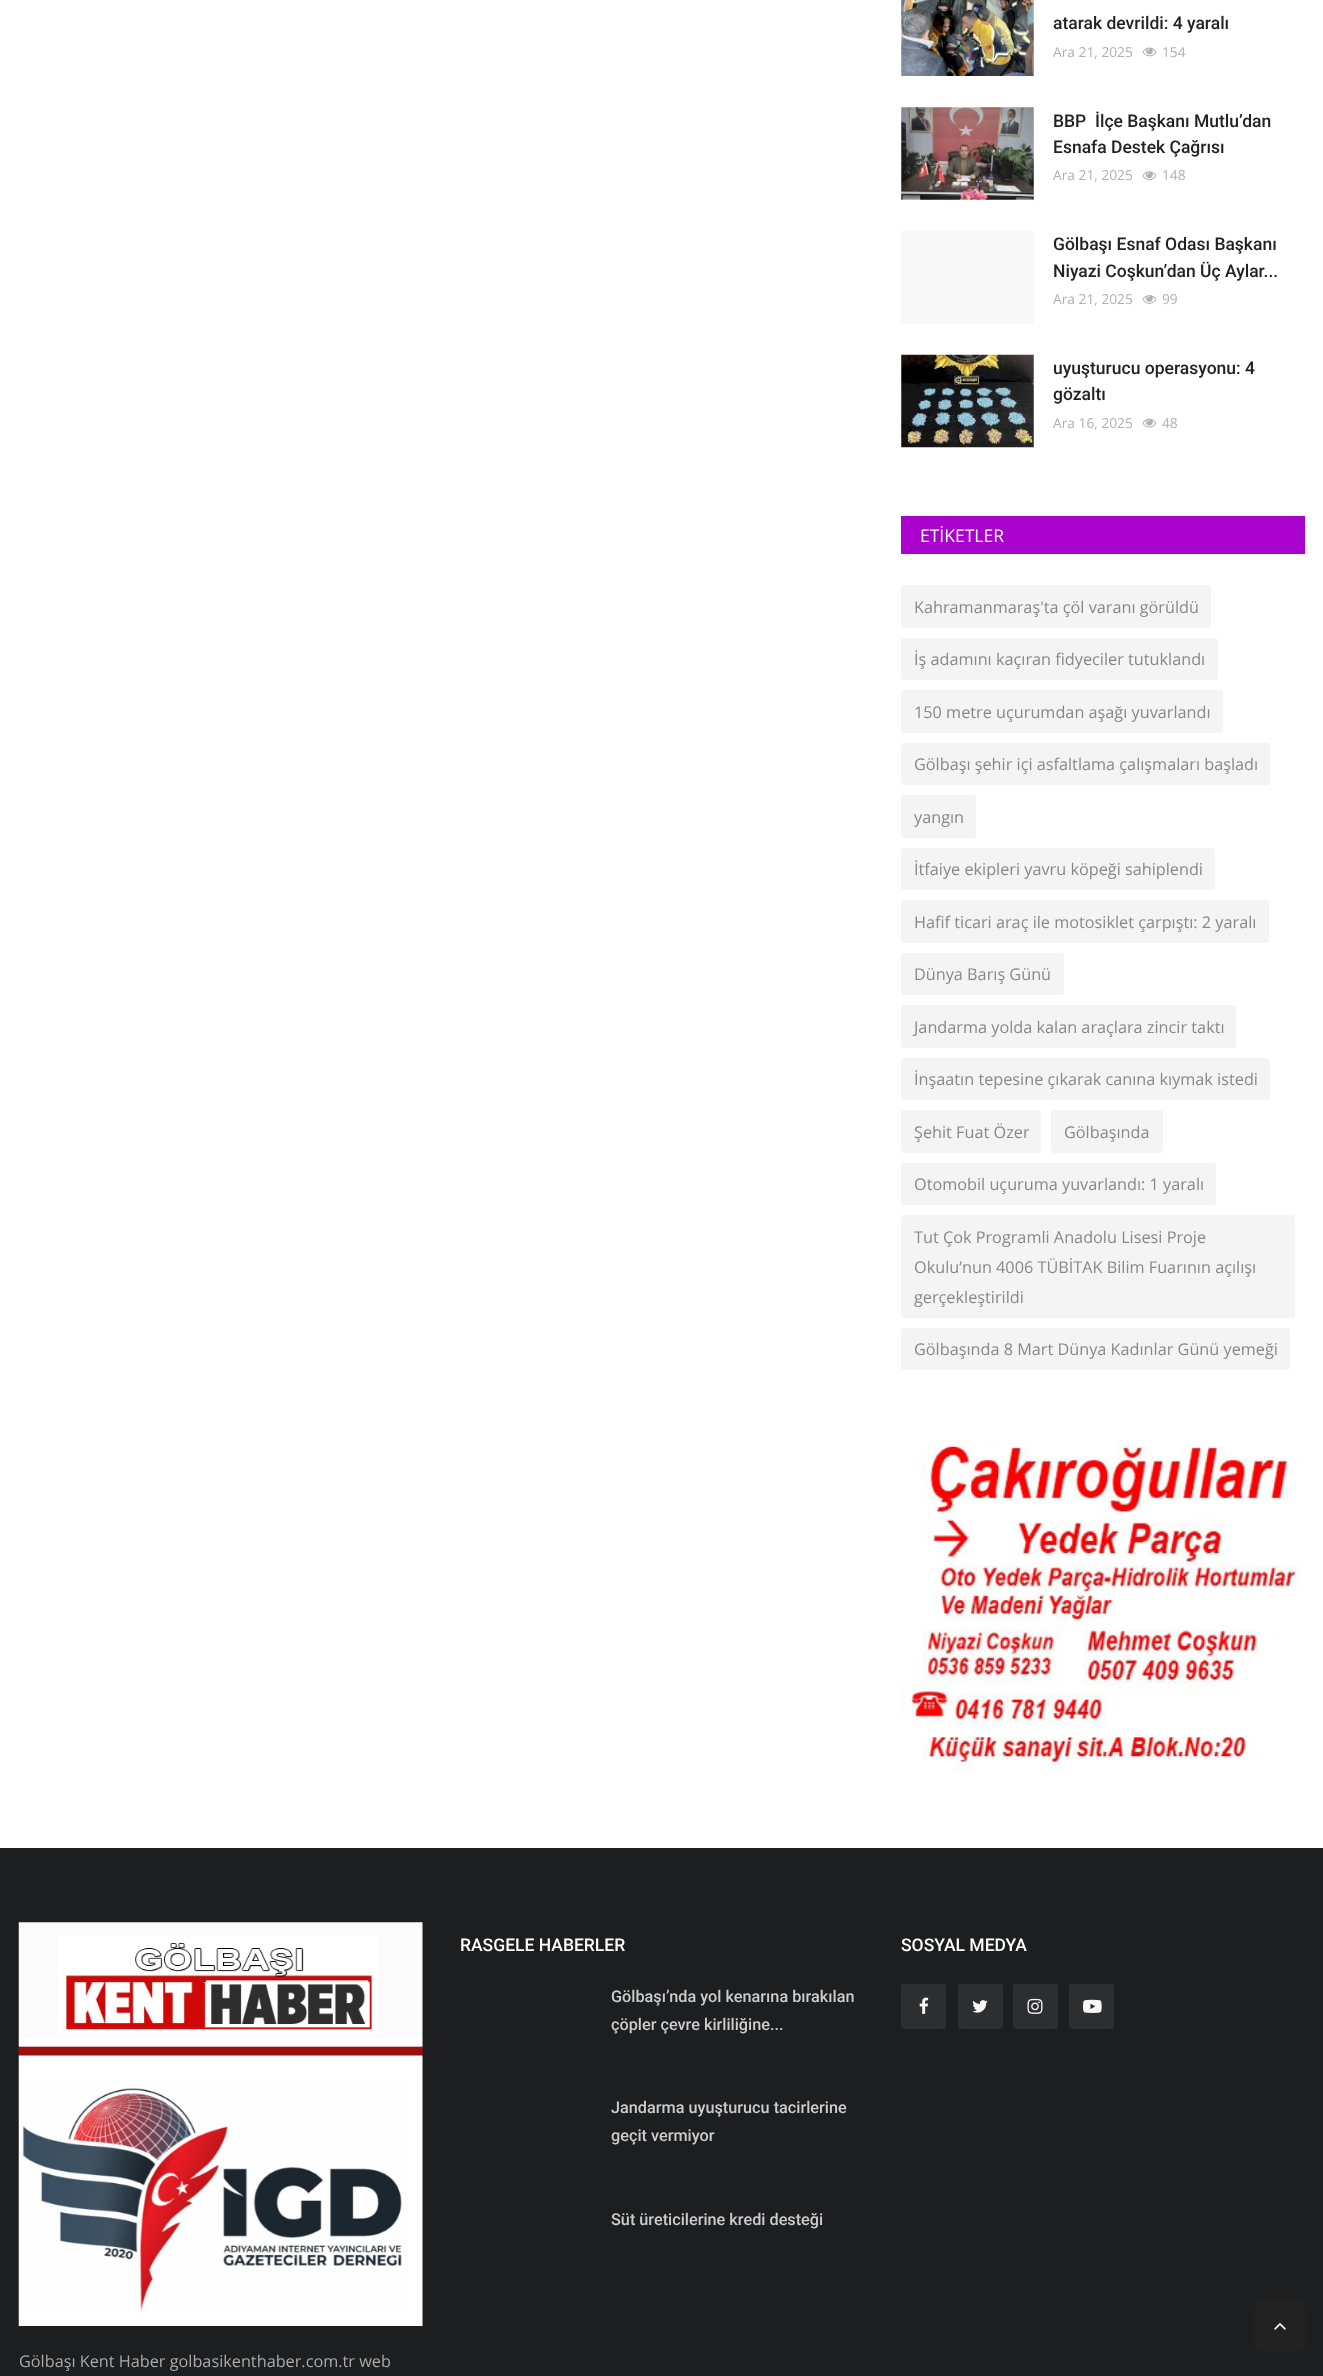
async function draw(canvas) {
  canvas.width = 1323
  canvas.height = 2376
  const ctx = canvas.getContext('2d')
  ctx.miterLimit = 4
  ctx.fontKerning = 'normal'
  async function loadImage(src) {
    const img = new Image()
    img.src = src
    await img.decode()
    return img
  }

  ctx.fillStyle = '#fff'
  ctx.fillRect(0, 0, 1323, 2376)
  ctx.drawImage(await loadImage('image0.png'), 901, 0, 133, 76)
  ctx.font = '500 17.5px Roboto'
  ctx.fillStyle = '#222'
  ctx.fillText('atarak devrildi: 4 yaralı ', 1053, 29)
  ctx.font = '13.75px Open Sans'
  ctx.fillStyle = '#b0b0b0'
  ctx.fillText('Ara 21, 2025', 1053, 57)
  ctx.drawImage(await loadImage('image1.png'), 1142, 47, 15, 10)
  ctx.fillText('154', 1162, 57)
  ctx.drawImage(await loadImage('image2.png'), 901, 107, 133, 93)
  ctx.font = '500 17.5px Roboto'
  ctx.fillStyle = '#222'
  ctx.fillText('BBP  İlçe Başkanı Mutlu’dan', 1053, 127)
  ctx.fillText('Esnafa Destek Çağrısı', 1053, 153)
  ctx.font = '13.75px Open Sans'
  ctx.fillStyle = '#b0b0b0'
  ctx.fillText('Ara 21, 2025', 1053, 180)
  ctx.drawImage(await loadImage('image3.png'), 1142, 171, 15, 10)
  ctx.fillText('148', 1162, 180)
  ctx.fillStyle = '#f8f8f8'
  ctx.fillRect(901, 231, 133, 93)
  ctx.font = '500 17.5px Roboto'
  ctx.fillStyle = '#222'
  ctx.fillText('Gölbaşı Esnaf Odası Başkanı', 1053, 250)
  ctx.fillText('Niyazi Coşkun’dan Üç Aylar...', 1053, 277)
  ctx.font = '13.75px Open Sans'
  ctx.fillStyle = '#b0b0b0'
  ctx.fillText('Ara 21, 2025', 1053, 304)
  ctx.drawImage(await loadImage('image4.png'), 1142, 295, 15, 9)
  ctx.fillText('99', 1162, 304)
  ctx.drawImage(await loadImage('image5.png'), 901, 354, 133, 94)
  ctx.font = '500 17.5px Roboto'
  ctx.fillStyle = '#222'
  ctx.fillText('uyuşturucu operasyonu: 4', 1053, 374)
  ctx.fillText('gözaltı', 1053, 400)
  ctx.font = '13.75px Open Sans'
  ctx.fillStyle = '#b0b0b0'
  ctx.fillText('Ara 16, 2025', 1053, 428)
  ctx.drawImage(await loadImage('image6.png'), 1142, 418, 15, 10)
  ctx.fillText('48', 1162, 428)
  ctx.fillStyle = '#a902cd'
  ctx.fillRect(901, 516, 404, 38)
  ctx.font = '17.5px Open Sans'
  ctx.fillStyle = '#fff'
  ctx.fillText('ETİKETLER', 920, 542)
  ctx.fillStyle = '#f4f4f4'
  ctx.beginPath()
  ctx.roundRect(901, 585, 310, 43, 3)
  ctx.fill()
  ctx.font = '16.25px Open Sans'
  ctx.fillStyle = '#888'
  ctx.fillText('Kahramanmaraş\'ta çöl varanı görüldü', 914, 613)
  ctx.fillStyle = '#f4f4f4'
  ctx.beginPath()
  ctx.roundRect(901, 638, 317, 42, 3)
  ctx.fill()
  ctx.fillStyle = '#888'
  ctx.fillText('İş adamını kaçıran fidyeciler tutuklandı', 914, 665)
  ctx.fillStyle = '#f4f4f4'
  ctx.beginPath()
  ctx.roundRect(901, 690, 322, 43, 3)
  ctx.fill()
  ctx.fillStyle = '#888'
  ctx.fillText('150 metre uçurumdan aşağı yuvarlandı', 914, 718)
  ctx.fillStyle = '#f4f4f4'
  ctx.beginPath()
  ctx.roundRect(901, 743, 369, 42, 3)
  ctx.fill()
  ctx.fillStyle = '#888'
  ctx.fillText('Gölbaşı şehir içi asfaltlama çalışmaları başladı', 914, 770)
  ctx.fillStyle = '#f4f4f4'
  ctx.beginPath()
  ctx.roundRect(901, 795, 75, 43, 3)
  ctx.fill()
  ctx.fillStyle = '#888'
  ctx.fillText('yangın', 914, 823)
  ctx.fillStyle = '#f4f4f4'
  ctx.beginPath()
  ctx.roundRect(901, 848, 314, 42, 3)
  ctx.fill()
  ctx.fillStyle = '#888'
  ctx.fillText('İtfaiye ekipleri yavru köpeği sahiplendi', 914, 875)
  ctx.fillStyle = '#f4f4f4'
  ctx.beginPath()
  ctx.roundRect(901, 900, 368, 43, 3)
  ctx.fill()
  ctx.fillStyle = '#888'
  ctx.fillText('Hafif ticari araç ile motosiklet çarpıştı: 2 yaralı', 914, 928)
  ctx.fillStyle = '#f4f4f4'
  ctx.beginPath()
  ctx.roundRect(901, 953, 163, 42, 3)
  ctx.fill()
  ctx.fillStyle = '#888'
  ctx.fillText('Dünya Barış Günü', 914, 980)
  ctx.fillStyle = '#f4f4f4'
  ctx.beginPath()
  ctx.roundRect(901, 1005, 335, 43, 3)
  ctx.fill()
  ctx.fillStyle = '#888'
  ctx.fillText('Jandarma yolda kalan araçlara zincir taktı', 914, 1033)
  ctx.fillStyle = '#f4f4f4'
  ctx.beginPath()
  ctx.roundRect(901, 1058, 369, 42, 3)
  ctx.fill()
  ctx.fillStyle = '#888'
  ctx.fillText('İnşaatın tepesine çıkarak canına kıymak istedi', 914, 1085)
  ctx.fillStyle = '#f4f4f4'
  ctx.beginPath()
  ctx.roundRect(901, 1110, 140, 43, 3)
  ctx.fill()
  ctx.fillStyle = '#888'
  ctx.fillText('Şehit Fuat Özer', 914, 1138)
  ctx.fillStyle = '#f4f4f4'
  ctx.beginPath()
  ctx.roundRect(1051, 1110, 112, 43, 3)
  ctx.fill()
  ctx.fillStyle = '#888'
  ctx.fillText('Gölbaşında', 1064, 1138)
  ctx.fillStyle = '#f4f4f4'
  ctx.beginPath()
  ctx.roundRect(901, 1163, 315, 42, 3)
  ctx.fill()
  ctx.fillStyle = '#888'
  ctx.fillText('Otomobil uçuruma yuvarlandı: 1 yaralı', 914, 1190)
  ctx.fillStyle = '#f4f4f4'
  ctx.beginPath()
  ctx.roundRect(901, 1215, 394, 103, 3)
  ctx.fill()
  ctx.fillStyle = '#888'
  ctx.fillText('Tut Çok Programli Anadolu Lisesi Proje', 914, 1243)
  ctx.fillText('Okulu’nun 4006 TÜBİTAK Bilim Fuarının açılışı', 914, 1273)
  ctx.fillText('gerçekleştirildi', 914, 1303)
  ctx.fillStyle = '#f4f4f4'
  ctx.beginPath()
  ctx.roundRect(901, 1328, 389, 42, 3)
  ctx.fill()
  ctx.fillStyle = '#888'
  ctx.fillText('Gölbaşında 8 Mart Dünya Kadınlar Günü yemeği', 914, 1355)
  ctx.drawImage(await loadImage('image7.png'), 901, 1440, 399, 332)
  ctx.fillStyle = '#1d1e20'
  ctx.fillRect(0, 1848, 1323, 528)
  ctx.font = '500 17.5px Roboto'
  ctx.fillStyle = '#fff'
  ctx.fillText('RASGELE HABERLER', 460, 1951)
  ctx.font = '500 16.25px Roboto'
  ctx.fillStyle = '#ccc'
  ctx.fillText('Gölbaşı’nda yol kenarına bırakılan', 611, 2002)
  ctx.fillText('çöpler çevre kirliliğine...', 611, 2030)
  ctx.fillText('Jandarma uyuşturucu tacirlerine', 611, 2113)
  ctx.fillText('geçit vermiyor', 611, 2141)
  ctx.fillText('Süt üreticilerine kredi desteği', 611, 2225)
  ctx.font = '500 17.5px Roboto'
  ctx.fillStyle = '#fff'
  ctx.fillText('SOSYAL MEDYA', 901, 1951)
  ctx.fillStyle = '#2d2e30'
  ctx.beginPath()
  ctx.roundRect(901, 1984, 45, 45, 3)
  ctx.fill()
  ctx.drawImage(await loadImage('image8.png'), 919, 1997, 10, 17)
  ctx.beginPath()
  ctx.roundRect(958, 1984, 45, 45, 3)
  ctx.fill()
  ctx.drawImage(await loadImage('image9.png'), 972, 2000, 16, 13)
  ctx.beginPath()
  ctx.roundRect(1013, 1984, 45, 45, 3)
  ctx.fill()
  ctx.drawImage(await loadImage('image10.png'), 1027, 1998, 16, 16)
  ctx.beginPath()
  ctx.roundRect(1069, 1984, 45, 45, 3)
  ctx.fill()
  ctx.drawImage(await loadImage('image11.png'), 1083, 1999, 19, 14)
  ctx.drawImage(await loadImage('image12.png'), 18, 1922, 405, 404)
  ctx.font = '16.25px Open Sans'
  ctx.fillStyle = '#aaa'
  ctx.fillText('Gölbaşı Kent Haber golbasikenthaber.com.tr web', 19, 2367)
  ctx.fillStyle = '#222'
  ctx.beginPath()
  ctx.roundRect(1255, 2301, 50, 50, 4)
  ctx.fill()
  ctx.drawImage(await loadImage('image13.png'), 1274, 2323, 12, 7)
}

draw(document.querySelector('canvas'))
